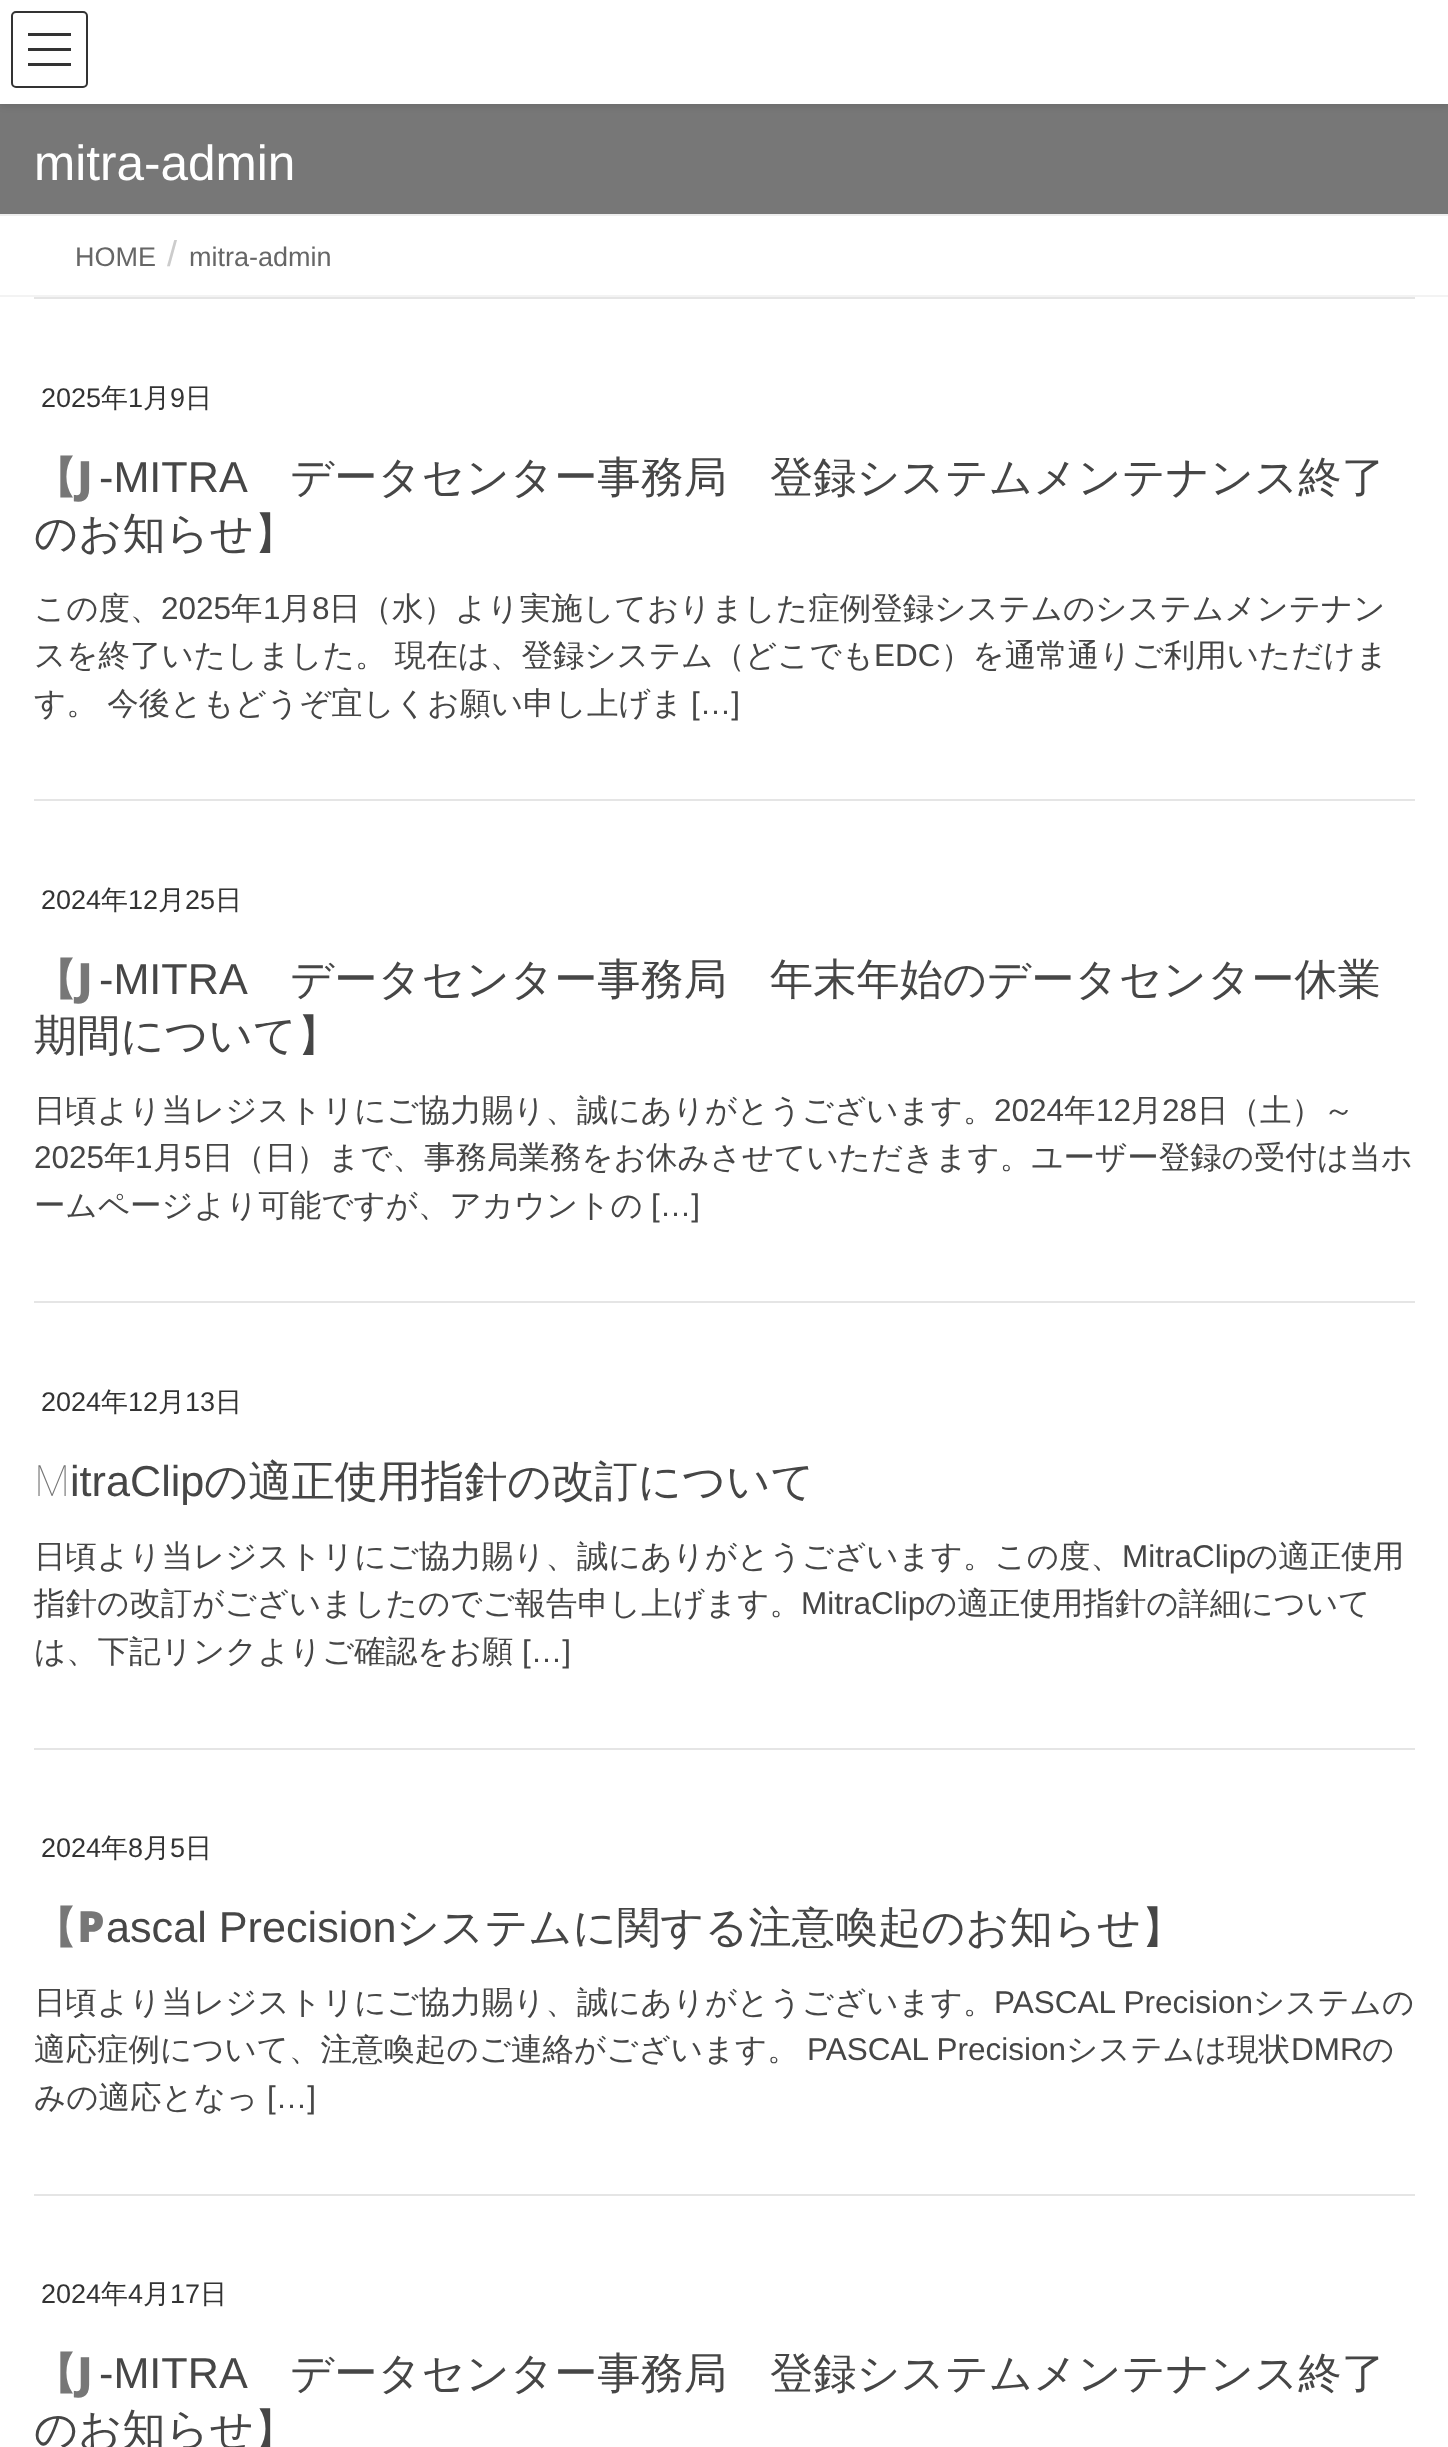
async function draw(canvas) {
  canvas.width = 1448
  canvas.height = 2447
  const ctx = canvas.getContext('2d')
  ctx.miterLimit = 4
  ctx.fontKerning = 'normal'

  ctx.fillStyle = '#fff'
  ctx.fillRect(0, 0, 1448, 2447)
  ctx.fillStyle = '#777'
  ctx.fillRect(0, 104, 1448, 110)
  ctx.fillStyle = '#0000001a'
  ctx.filter = 'blur(3.5px)'
  ctx.beginPath()
  ctx.rect(0, 2, 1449, 104)
  ctx.fill()
  ctx.filter = 'none'
  ctx.fillStyle = '#fff'
  ctx.fillRect(0, 0, 1448, 104)
  ctx.fillStyle = '#333'
  ctx.fillRect(28, 33, 43, 3)
  ctx.fillRect(28, 48, 43, 3)
  ctx.fillRect(28, 63, 43, 3)
  ctx.beginPath()
  ctx.roundRect(12, 12, 75, 75, 4)
  ctx.strokeStyle = '#333'
  ctx.lineWidth = 2
  ctx.stroke()
  ctx.fillStyle = '#eee'
  ctx.fillRect(0, 214, 1448, 2)
  ctx.font = '49.5px Liberation Sans'
  ctx.fillStyle = '#fff'
  ctx.fillText('mitra-admin', 34, 180)
  ctx.fillStyle = '#f3f3f3'
  ctx.fillRect(0, 295, 1448, 2)
  ctx.font = '27px Liberation Sans'
  ctx.fillStyle = '#666'
  ctx.fillText('HOME', 75, 266)
  ctx.font = '36px Liberation Sans'
  ctx.fillStyle = '#ccc'
  ctx.fillText('/', 167, 266)
  ctx.font = '27px Liberation Sans'
  ctx.fillStyle = '#666'
  ctx.fillText('mitra-admin', 189, 266)
  ctx.fillStyle = '#e5e5e5'
  ctx.fillRect(34, 297, 1381, 2)
  ctx.fillRect(34, 799, 1381, 2)
  ctx.fillStyle = '#333'
  ctx.fillText('2025', 41, 407)
  ctx.font = '500 27px WenQuanYi Zen Hei'
  ctx.fillText('年', 101, 407)
  ctx.font = '27px Liberation Sans'
  ctx.fillText('1', 128, 407)
  ctx.font = '500 27px WenQuanYi Zen Hei'
  ctx.fillText('月', 143, 407)
  ctx.font = '27px Liberation Sans'
  ctx.fillText('9', 170, 407)
  ctx.font = '500 27px WenQuanYi Zen Hei'
  ctx.fillText('日', 185, 407)
  ctx.font = '900 43.2px Noto Sans'
  ctx.fillStyle = '#777'
  ctx.fillText('【J', 34, 492)
  ctx.font = '43.2px Liberation Sans'
  ctx.fillStyle = '#464646'
  ctx.fillText('-MITRA', 99, 492)
  ctx.font = '500 43.2px WenQuanYi Zen Hei'
  ctx.fillText('データセンター事務局　登録システムメンテナンス終了', 290, 492)
  ctx.fillText('のお知らせ】', 34, 548)
  ctx.font = '500 31.5px WenQuanYi Zen Hei'
  ctx.fillText('この度、', 34, 619)
  ctx.font = '31.5px Liberation Sans'
  ctx.fillText('2025', 161, 619)
  ctx.font = '500 31.5px WenQuanYi Zen Hei'
  ctx.fillText('年', 231, 619)
  ctx.font = '31.5px Liberation Sans'
  ctx.fillText('1', 263, 619)
  ctx.font = '500 31.5px WenQuanYi Zen Hei'
  ctx.fillText('月', 280, 619)
  ctx.font = '31.5px Liberation Sans'
  ctx.fillText('8', 312, 619)
  ctx.font = '500 31.5px WenQuanYi Zen Hei'
  ctx.fillText('日（水）より実施しておりました症例登録システムのシステムメンテナン', 329, 619)
  ctx.wordSpacing = '-1px'
  ctx.fillText('スを終了いたしました。 現在は、登録システム（どこでも', 34, 666)
  ctx.wordSpacing = '0px'
  ctx.font = '31.5px Liberation Sans'
  ctx.fillText('EDC', 874, 666)
  ctx.font = '500 31.5px WenQuanYi Zen Hei'
  ctx.fillText('）を通常通りご利用いただけま', 941, 666)
  ctx.fillText('す。 今後ともどうぞ宜しくお願い申し上げま', 34, 714)
  ctx.font = '31.5px Liberation Sans'
  ctx.fillText('[…]', 691, 714)
  ctx.fillStyle = '#e5e5e5'
  ctx.fillRect(34, 1301, 1381, 2)
  ctx.font = '27px Liberation Sans'
  ctx.fillStyle = '#333'
  ctx.fillText('2024', 41, 909)
  ctx.font = '500 27px WenQuanYi Zen Hei'
  ctx.fillText('年', 101, 909)
  ctx.font = '27px Liberation Sans'
  ctx.fillText('12', 128, 909)
  ctx.font = '500 27px WenQuanYi Zen Hei'
  ctx.fillText('月', 158, 909)
  ctx.font = '27px Liberation Sans'
  ctx.fillText('25', 185, 909)
  ctx.font = '500 27px WenQuanYi Zen Hei'
  ctx.fillText('日', 215, 909)
  ctx.font = '900 43.2px Noto Sans'
  ctx.fillStyle = '#777'
  ctx.fillText('【J', 34, 994)
  ctx.font = '43.2px Liberation Sans'
  ctx.fillStyle = '#464646'
  ctx.fillText('-MITRA', 99, 994)
  ctx.font = '500 43.2px WenQuanYi Zen Hei'
  ctx.fillText('データセンター事務局　年末年始のデータセンター休業', 290, 994)
  ctx.fillText('期間について】', 34, 1050)
  ctx.font = '500 31.5px WenQuanYi Zen Hei'
  ctx.fillText('日頃より当レジストリにご協力賜り、誠にありがとうございます。', 34, 1121)
  ctx.font = '31.5px Liberation Sans'
  ctx.fillText('2024', 994, 1121)
  ctx.font = '500 31.5px WenQuanYi Zen Hei'
  ctx.fillText('年', 1064, 1121)
  ctx.font = '31.5px Liberation Sans'
  ctx.fillText('12', 1096, 1121)
  ctx.font = '500 31.5px WenQuanYi Zen Hei'
  ctx.fillText('月', 1131, 1121)
  ctx.font = '31.5px Liberation Sans'
  ctx.fillText('28', 1162, 1121)
  ctx.font = '500 31.5px WenQuanYi Zen Hei'
  ctx.fillText('日（土）～', 1197, 1121)
  ctx.font = '31.5px Liberation Sans'
  ctx.fillText('2025', 34, 1168)
  ctx.font = '500 31.5px WenQuanYi Zen Hei'
  ctx.fillText('年', 104, 1168)
  ctx.font = '31.5px Liberation Sans'
  ctx.fillText('1', 135, 1168)
  ctx.font = '500 31.5px WenQuanYi Zen Hei'
  ctx.fillText('月', 153, 1168)
  ctx.font = '31.5px Liberation Sans'
  ctx.fillText('5', 184, 1168)
  ctx.font = '500 31.5px WenQuanYi Zen Hei'
  ctx.fillText('日（日）まで、事務局業務をお休みさせていただきます。ユーザー登録の受付は当ホ', 202, 1168)
  ctx.fillText('ームページより可能ですが、アカウントの', 34, 1216)
  ctx.font = '31.5px Liberation Sans'
  ctx.fillText('[…]', 651, 1216)
  ctx.fillStyle = '#e5e5e5'
  ctx.fillRect(34, 1748, 1381, 2)
  ctx.font = '27px Liberation Sans'
  ctx.fillStyle = '#333'
  ctx.fillText('2024', 41, 1411)
  ctx.font = '500 27px WenQuanYi Zen Hei'
  ctx.fillText('年', 101, 1411)
  ctx.font = '27px Liberation Sans'
  ctx.fillText('12', 128, 1411)
  ctx.font = '500 27px WenQuanYi Zen Hei'
  ctx.fillText('月', 158, 1411)
  ctx.font = '27px Liberation Sans'
  ctx.fillText('13', 185, 1411)
  ctx.font = '500 27px WenQuanYi Zen Hei'
  ctx.fillText('日', 215, 1411)
  ctx.font = '100 43.2px Noto Sans'
  ctx.fillStyle = '#777'
  ctx.fillText('M', 34, 1496)
  ctx.font = '43.2px Liberation Sans'
  ctx.fillStyle = '#464646'
  ctx.fillText('itraClip', 70, 1496)
  ctx.font = '500 43.2px WenQuanYi Zen Hei'
  ctx.fillText('の適正使用指針の改訂について', 204, 1496)
  ctx.font = '500 31.5px WenQuanYi Zen Hei'
  ctx.fillText('日頃より当レジストリにご協力賜り、誠にありがとうございます。この度、', 34, 1567)
  ctx.font = '31.5px Liberation Sans'
  ctx.fillText('MitraClip', 1122, 1567)
  ctx.font = '500 31.5px WenQuanYi Zen Hei'
  ctx.fillText('の適正使用', 1246, 1567)
  ctx.fillText('指針の改訂がございましたのでご報告申し上げます。', 34, 1614)
  ctx.font = '31.5px Liberation Sans'
  ctx.fillText('MitraClip', 801, 1614)
  ctx.font = '500 31.5px WenQuanYi Zen Hei'
  ctx.fillText('の適正使用指針の詳細について', 925, 1614)
  ctx.fillText('は、下記リンクよりご確認をお願', 34, 1662)
  ctx.font = '31.5px Liberation Sans'
  ctx.fillText('[…]', 522, 1662)
  ctx.fillStyle = '#e5e5e5'
  ctx.fillRect(34, 2194, 1381, 2)
  ctx.font = '27px Liberation Sans'
  ctx.fillStyle = '#333'
  ctx.fillText('2024', 41, 1857)
  ctx.font = '500 27px WenQuanYi Zen Hei'
  ctx.fillText('年', 101, 1857)
  ctx.font = '27px Liberation Sans'
  ctx.fillText('8', 128, 1857)
  ctx.font = '500 27px WenQuanYi Zen Hei'
  ctx.fillText('月', 143, 1857)
  ctx.font = '27px Liberation Sans'
  ctx.fillText('5', 170, 1857)
  ctx.font = '500 27px WenQuanYi Zen Hei'
  ctx.fillText('日', 185, 1857)
  ctx.font = '900 43.2px Noto Sans'
  ctx.fillStyle = '#777'
  ctx.fillText('【P', 34, 1942)
  ctx.font = '43.2px Liberation Sans'
  ctx.fillStyle = '#464646'
  ctx.fillText('ascal Precision', 106, 1942)
  ctx.font = '500 43.2px WenQuanYi Zen Hei'
  ctx.fillText('システムに関する注意喚起のお知らせ】', 396, 1942)
  ctx.font = '500 31.5px WenQuanYi Zen Hei'
  ctx.fillText('日頃より当レジストリにご協力賜り、誠にありがとうございます。', 34, 2013)
  ctx.font = '31.5px Liberation Sans'
  ctx.fillText('PASCAL Precision', 994, 2013)
  ctx.font = '500 31.5px WenQuanYi Zen Hei'
  ctx.fillText('システムの', 1253, 2013)
  ctx.fillText('適応症例について、注意喚起のご連絡がございます。', 34, 2060)
  ctx.font = '31.5px Liberation Sans'
  ctx.fillText('PASCAL Precision', 807, 2060)
  ctx.font = '500 31.5px WenQuanYi Zen Hei'
  ctx.fillText('システムは現状', 1066, 2060)
  ctx.font = '31.5px Liberation Sans'
  ctx.fillText('DMR', 1291, 2060)
  ctx.font = '500 31.5px WenQuanYi Zen Hei'
  ctx.fillText('の', 1362, 2060)
  ctx.fillText('みの適応となっ', 34, 2108)
  ctx.font = '31.5px Liberation Sans'
  ctx.fillText('[…]', 267, 2108)
  ctx.font = '27px Liberation Sans'
  ctx.fillStyle = '#333'
  ctx.fillText('2024', 41, 2303)
  ctx.font = '500 27px WenQuanYi Zen Hei'
  ctx.fillText('年', 101, 2303)
  ctx.font = '27px Liberation Sans'
  ctx.fillText('4', 128, 2303)
  ctx.font = '500 27px WenQuanYi Zen Hei'
  ctx.fillText('月', 143, 2303)
  ctx.font = '27px Liberation Sans'
  ctx.fillText('17', 170, 2303)
  ctx.font = '500 27px WenQuanYi Zen Hei'
  ctx.fillText('日', 200, 2303)
  ctx.font = '900 43.2px Noto Sans'
  ctx.fillStyle = '#777'
  ctx.fillText('【J', 34, 2388)
  ctx.font = '43.2px Liberation Sans'
  ctx.fillStyle = '#464646'
  ctx.fillText('-MITRA', 99, 2388)
  ctx.font = '500 43.2px WenQuanYi Zen Hei'
  ctx.fillText('データセンター事務局　登録システムメンテナンス終了', 290, 2388)
  ctx.fillText('のお知らせ】', 34, 2444)
}

draw(document.querySelector('canvas'))
